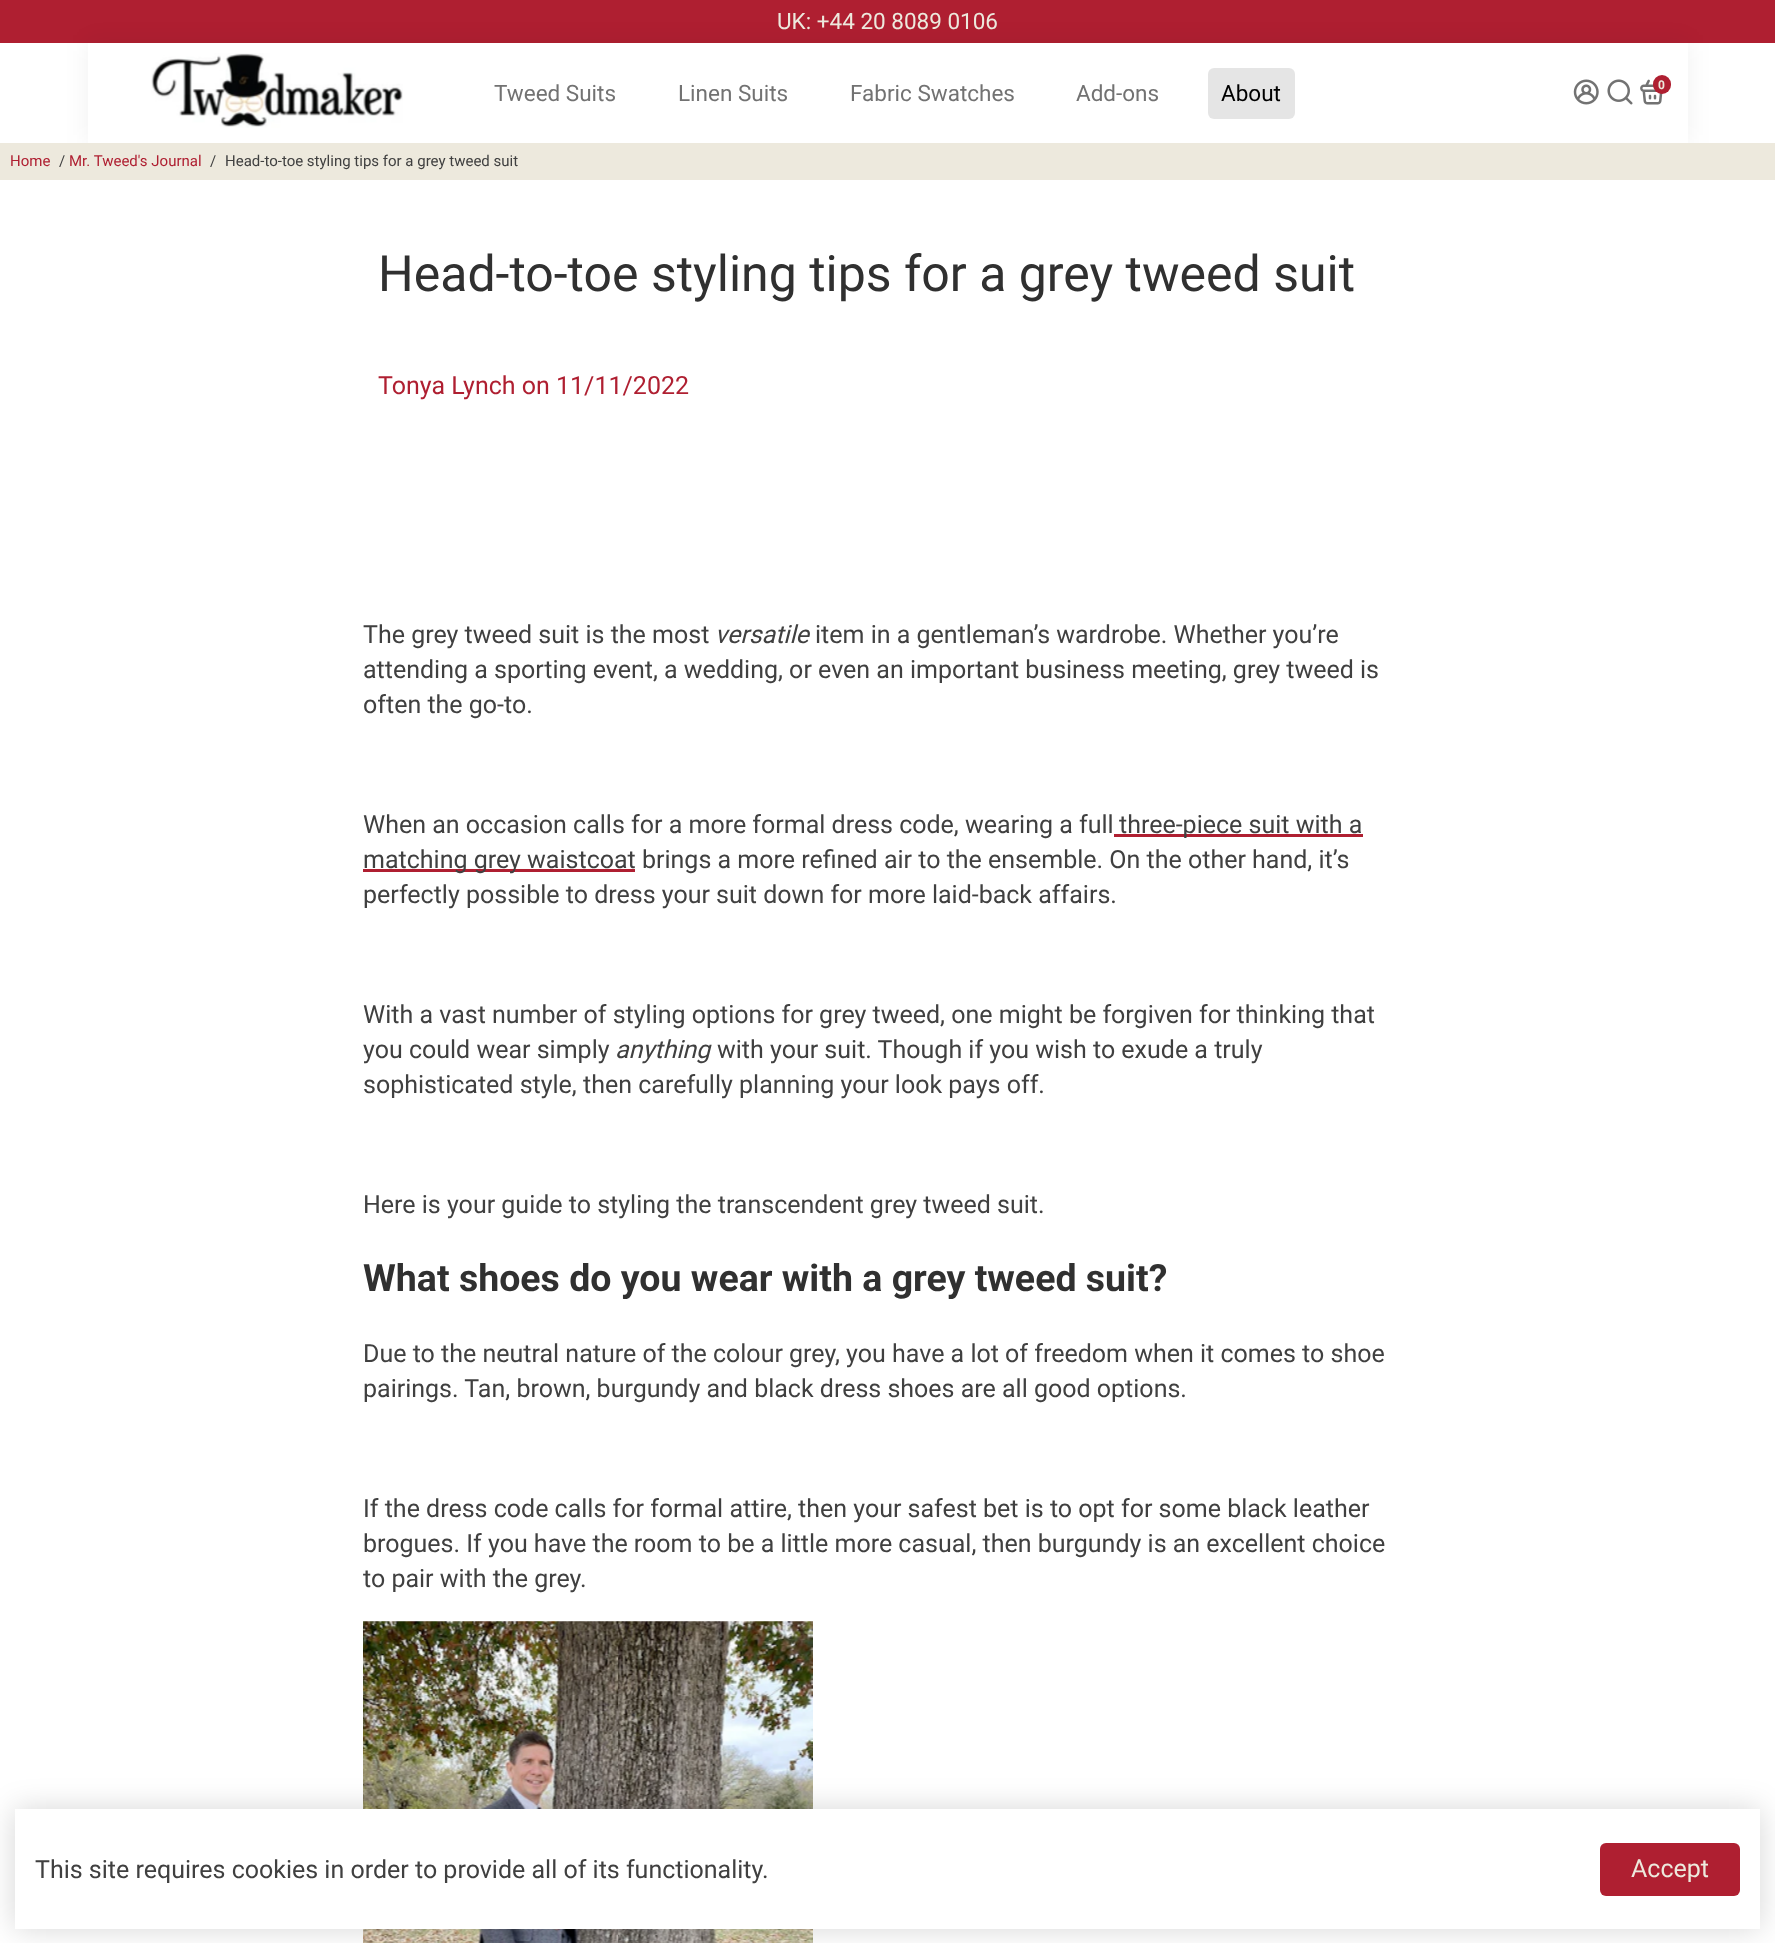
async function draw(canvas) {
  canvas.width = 1775
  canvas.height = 1943
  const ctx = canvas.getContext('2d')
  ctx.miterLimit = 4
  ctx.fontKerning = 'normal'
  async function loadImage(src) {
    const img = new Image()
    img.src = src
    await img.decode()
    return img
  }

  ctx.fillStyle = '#fff'
  ctx.fillRect(0, 0, 1775, 1943)
  ctx.fillStyle = '#af1f31'
  ctx.fillRect(0, 0, 1775, 43)
  ctx.fillStyle = '#0000000f'
  ctx.filter = 'blur(12.5px)'
  ctx.beginPath()
  ctx.rect(88, 43, 1600, 100)
  ctx.fill()
  ctx.filter = 'none'
  ctx.font = '22.5px Roboto'
  ctx.fillStyle = '#ede9dd'
  ctx.fillText('UK: +44 20 8089 0106', 777, 29)
  ctx.fillStyle = '#fff'
  ctx.fillRect(88, 43, 1600, 100)
  ctx.drawImage(await loadImage('image0.png'), 151, 53, 252, 75)
  ctx.fillStyle = '#727272'
  ctx.fillText('Tweed Suits', 494, 101)
  ctx.fillText('Linen Suits', 678, 101)
  ctx.fillText('Fabric Swatches', 850, 101)
  ctx.fillText('Add-ons', 1076, 101)
  ctx.fillStyle = '#0000001a'
  ctx.beginPath()
  ctx.roundRect(1208, 68, 87, 51, 6)
  ctx.fill()
  ctx.fillStyle = '#000'
  ctx.fillText('About', 1221, 101)
  ctx.drawImage(await loadImage('image1.png'), 1573, 79, 26, 26)
  ctx.drawImage(await loadImage('image2.png'), 1607, 79, 26, 26)
  ctx.drawImage(await loadImage('image3.png'), 1640, 79, 23, 26)
  ctx.fillStyle = '#af1f31'
  ctx.beginPath()
  ctx.roundRect(1653, 75, 18, 19, 9)
  ctx.fill()
  ctx.font = 'bold 12px Roboto'
  ctx.fillStyle = '#ede9dd'
  ctx.fillText('0', 1658, 89)
  ctx.fillRect(0, 143, 1775, 37)
  ctx.font = '15px Roboto'
  ctx.fillStyle = '#af1f31'
  ctx.fillText('Home', 10, 166)
  ctx.fillStyle = '#404040'
  ctx.fillText('/', 59, 166)
  ctx.fillStyle = '#af1f31'
  ctx.fillText('Mr. Tweed\'s Journal', 69, 166)
  ctx.fillStyle = '#404040'
  ctx.fillText('/', 210, 166)
  ctx.fillText('Head-to-toe styling tips for a grey tweed suit', 225, 166)
  ctx.font = '50px Roboto'
  ctx.fillStyle = '#303030'
  ctx.fillText('Head-to-toe styling tips for a grey tweed suit', 378, 291)
  ctx.font = '25px Roboto'
  ctx.fillStyle = '#af1f31'
  ctx.fillText('Tonya Lynch on 11/11/2022', 378, 394)
  ctx.fillStyle = '#404040'
  ctx.fillText('The grey tweed suit is the most', 363, 643)
  ctx.font = 'italic 25px Roboto'
  ctx.fillText('versatile', 715, 643)
  ctx.font = '25px Roboto'
  ctx.fillText('item in a gentleman’s wardrobe. Whether you’re', 815, 643)
  ctx.fillText('attending a sporting event, a wedding, or even an important business meeting, grey tweed is', 363, 678)
  ctx.fillText('often the go-to.', 363, 713)
  ctx.fillText('When an occasion calls for a more formal dress code, wearing a full', 363, 833)
  ctx.fillStyle = '#af1f31'
  ctx.fillRect(1114, 834, 249, 3)
  ctx.fillStyle = '#404040'
  ctx.fillText('three-piece suit with a', 1119, 833)
  ctx.fillStyle = '#af1f31'
  ctx.fillRect(363, 869, 272, 3)
  ctx.fillStyle = '#404040'
  ctx.fillText('matching grey waistcoat brings a more refined air to the ensemble. On the other hand, it’s', 363, 868)
  ctx.fillText('perfectly possible to dress your suit down for more laid-back affairs.', 363, 903)
  ctx.fillText('With a vast number of styling options for grey tweed, one might be forgiven for thinking that', 363, 1023)
  ctx.fillText('you could wear simply', 363, 1058)
  ctx.font = 'italic 25px Roboto'
  ctx.fillText('anything', 615, 1058)
  ctx.font = '25px Roboto'
  ctx.fillText('with your suit. Though if you wish to exude a truly', 717, 1058)
  ctx.fillText('sophisticated style, then carefully planning your look pays off.', 363, 1093)
  ctx.fillText('Here is your guide to styling the transcendent grey tweed suit.', 363, 1213)
  ctx.font = 'bold 37.5px Roboto'
  ctx.fillStyle = '#303030'
  ctx.fillText('What shoes do you wear with a grey tweed suit?', 363, 1291)
  ctx.font = '25px Roboto'
  ctx.fillStyle = '#404040'
  ctx.fillText('Due to the neutral nature of the colour grey, you have a lot of freedom when it comes to shoe', 363, 1362)
  ctx.fillText('pairings. Tan, brown, burgundy and black dress shoes are all good options.', 363, 1397)
  ctx.fillText('If the dress code calls for formal attire, then your safest bet is to opt for some black leather', 363, 1517)
  ctx.fillText('brogues. If you have the room to be a little more casual, then burgundy is an excellent choice', 363, 1552)
  ctx.fillText('to pair with the grey.', 363, 1587)
  ctx.drawImage(await loadImage('image4.png'), 363, 1621, 450, 322)
  ctx.fillStyle = '#00000029'
  ctx.filter = 'blur(15px)'
  ctx.beginPath()
  ctx.rect(15, 1809, 1745, 120)
  ctx.fill()
  ctx.filter = 'none'
  ctx.fillStyle = '#fff'
  ctx.fillRect(15, 1809, 1745, 120)
  ctx.fillStyle = '#404040'
  ctx.fillText('This site requires cookies in order to provide all of its functionality.', 35, 1878)
  ctx.fillStyle = '#af1f31'
  ctx.beginPath()
  ctx.roundRect(1600, 1843, 140, 53, 6)
  ctx.fill()
  ctx.fillStyle = '#ede9dd'
  ctx.fillText('Accept', 1631, 1877)
}

draw(document.querySelector('canvas'))
